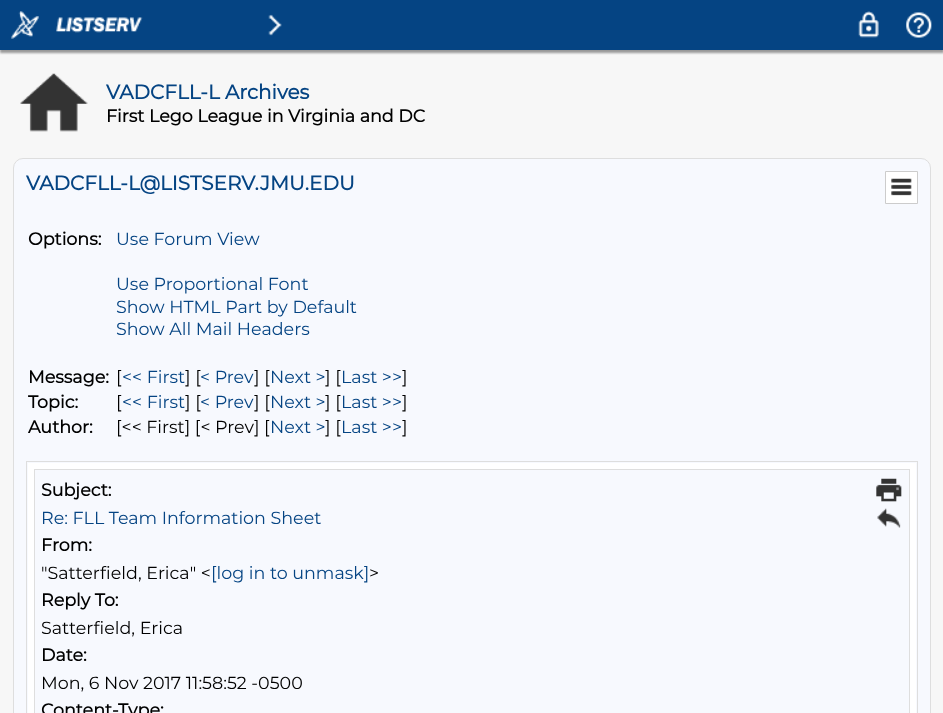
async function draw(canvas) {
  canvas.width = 943
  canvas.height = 713
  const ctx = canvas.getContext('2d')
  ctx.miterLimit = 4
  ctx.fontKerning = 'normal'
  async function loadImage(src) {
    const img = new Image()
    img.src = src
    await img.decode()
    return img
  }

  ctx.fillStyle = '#f7f7f7'
  ctx.fillRect(0, 0, 943, 713)
  ctx.fillStyle = '#999'
  ctx.filter = 'blur(1px)'
  ctx.beginPath()
  ctx.rect(0, 3, 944, 50)
  ctx.fill()
  ctx.filter = 'none'
  ctx.fillStyle = '#054483'
  ctx.fillRect(0, 0, 943, 50)
  ctx.drawImage(await loadImage('image0.png'), 11, 11, 28, 28)
  ctx.drawImage(await loadImage('image1.png'), 56, 17, 87, 16)
  ctx.drawImage(await loadImage('image2.png'), 268, 14, 14, 22)
  ctx.drawImage(await loadImage('image3.png'), 858, 11, 21, 27)
  ctx.drawImage(await loadImage('image4.png'), 906, 12, 26, 26)
  ctx.drawImage(await loadImage('image5.png'), 20, 73, 68, 59)
  ctx.font = 'bold 20px Montserrat'
  ctx.fillText('VADCFLL-L Archives', 106, 99)
  ctx.font = 'bold 17.5px Montserrat'
  ctx.fillStyle = '#000'
  ctx.fillText('First Lego League in Virginia and DC', 106, 122)
  ctx.fillStyle = '#f7f9fe'
  ctx.beginPath()
  ctx.roundRect(13.5, 158.5, 917, 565, 9.5)
  ctx.fill()
  ctx.strokeStyle = '#dedede'
  ctx.stroke()
  ctx.font = 'bold 20px Montserrat'
  ctx.fillStyle = '#054483'
  ctx.fillText('VADCFLL-L@LISTSERV.JMU.EDU', 26, 190)
  ctx.fillStyle = '#fff'
  ctx.beginPath()
  ctx.rect(885.5, 171.5, 32, 32)
  ctx.fill()
  ctx.strokeStyle = '#ccc'
  ctx.stroke()
  ctx.drawImage(await loadImage('image6.png'), 891, 178, 21, 18)
  ctx.font = 'bold 17.5px Montserrat'
  ctx.fillStyle = '#000'
  ctx.fillText('Options:', 28, 245)
  ctx.font = '100 17.5px Montserrat'
  ctx.fillStyle = '#054483'
  ctx.fillText('Use Forum View', 116, 245)
  ctx.fillText('Use Proportional Font', 116, 290)
  ctx.fillText('Show HTML Part by Default', 116, 313)
  ctx.fillText('Show All Mail Headers', 116, 335)
  ctx.font = 'bold 17.5px Montserrat'
  ctx.fillStyle = '#000'
  ctx.fillText('Message:', 28, 383)
  ctx.font = '100 17.5px Montserrat'
  ctx.fillText('[', 116, 383)
  ctx.fillStyle = '#054483'
  ctx.fillText('<< First', 122, 383)
  ctx.fillStyle = '#000'
  ctx.fillText('] [', 185, 383)
  ctx.fillStyle = '#054483'
  ctx.fillText('< Prev', 200, 383)
  ctx.fillStyle = '#000'
  ctx.fillText('] [', 254, 383)
  ctx.fillStyle = '#054483'
  ctx.fillText('Next >', 270, 383)
  ctx.fillStyle = '#000'
  ctx.fillText('] [', 325, 383)
  ctx.fillStyle = '#054483'
  ctx.fillText('Last >>', 341, 383)
  ctx.fillStyle = '#000'
  ctx.fillText(']', 402, 383)
  ctx.font = 'bold 17.5px Montserrat'
  ctx.fillText('Topic:', 28, 408)
  ctx.font = '100 17.5px Montserrat'
  ctx.fillText('[', 116, 408)
  ctx.fillStyle = '#054483'
  ctx.fillText('<< First', 122, 408)
  ctx.fillStyle = '#000'
  ctx.fillText('] [', 185, 408)
  ctx.fillStyle = '#054483'
  ctx.fillText('< Prev', 200, 408)
  ctx.fillStyle = '#000'
  ctx.fillText('] [', 254, 408)
  ctx.fillStyle = '#054483'
  ctx.fillText('Next >', 270, 408)
  ctx.fillStyle = '#000'
  ctx.fillText('] [', 325, 408)
  ctx.fillStyle = '#054483'
  ctx.fillText('Last >>', 341, 408)
  ctx.fillStyle = '#000'
  ctx.fillText(']', 402, 408)
  ctx.font = 'bold 17.5px Montserrat'
  ctx.fillText('Author:', 28, 433)
  ctx.font = '100 17.5px Montserrat'
  ctx.fillText('[<< First] [< Prev] [', 116, 433)
  ctx.fillStyle = '#054483'
  ctx.fillText('Next >', 270, 433)
  ctx.fillStyle = '#000'
  ctx.fillText('] [', 325, 433)
  ctx.fillStyle = '#054483'
  ctx.fillText('Last >>', 341, 433)
  ctx.fillStyle = '#000'
  ctx.fillText(']', 402, 433)
  ctx.strokeStyle = '#dedede'
  ctx.strokeRect(26.5, 461.5, 891, 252)
  ctx.fillStyle = '#fff'
  ctx.fillRect(28, 463, 888, 250)
  ctx.strokeRect(34.5, 469.5, 875, 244)
  ctx.fillStyle = '#f7f9fe'
  ctx.fillRect(35, 470, 874, 243)
  ctx.font = 'bold 17.5px Montserrat'
  ctx.fillStyle = '#000'
  ctx.fillText('Subject:', 41, 496)
  ctx.font = '100 17.5px Montserrat'
  ctx.fillStyle = '#054483'
  ctx.fillText('Re: FLL Team Information Sheet', 41, 524)
  ctx.font = 'bold 17.5px Montserrat'
  ctx.fillStyle = '#000'
  ctx.fillText('From:', 41, 551)
  ctx.font = '100 17.5px Montserrat'
  ctx.fillText('"Satterfield, Erica" <', 41, 579)
  ctx.fillStyle = '#054483'
  ctx.fillText('[log in to unmask]', 211, 579)
  ctx.fillStyle = '#000'
  ctx.fillText('>', 369, 579)
  ctx.font = 'bold 17.5px Montserrat'
  ctx.fillText('Reply To:', 41, 606)
  ctx.font = '100 17.5px Montserrat'
  ctx.fillText('Satterfield, Erica', 41, 634)
  ctx.font = 'bold 17.5px Montserrat'
  ctx.fillText('Date:', 41, 661)
  ctx.font = '100 17.5px Montserrat'
  ctx.fillText('Mon, 6 Nov 2017 11:58:52 -0500', 41, 689)
  ctx.font = 'bold 17.5px Montserrat'
  ctx.fillText('Content-Type:', 41, 716)
  ctx.drawImage(await loadImage('image7.png'), 876, 478, 26, 24)
  ctx.drawImage(await loadImage('image8.png'), 877, 508, 24, 20)
}

draw(document.querySelector('canvas'))
